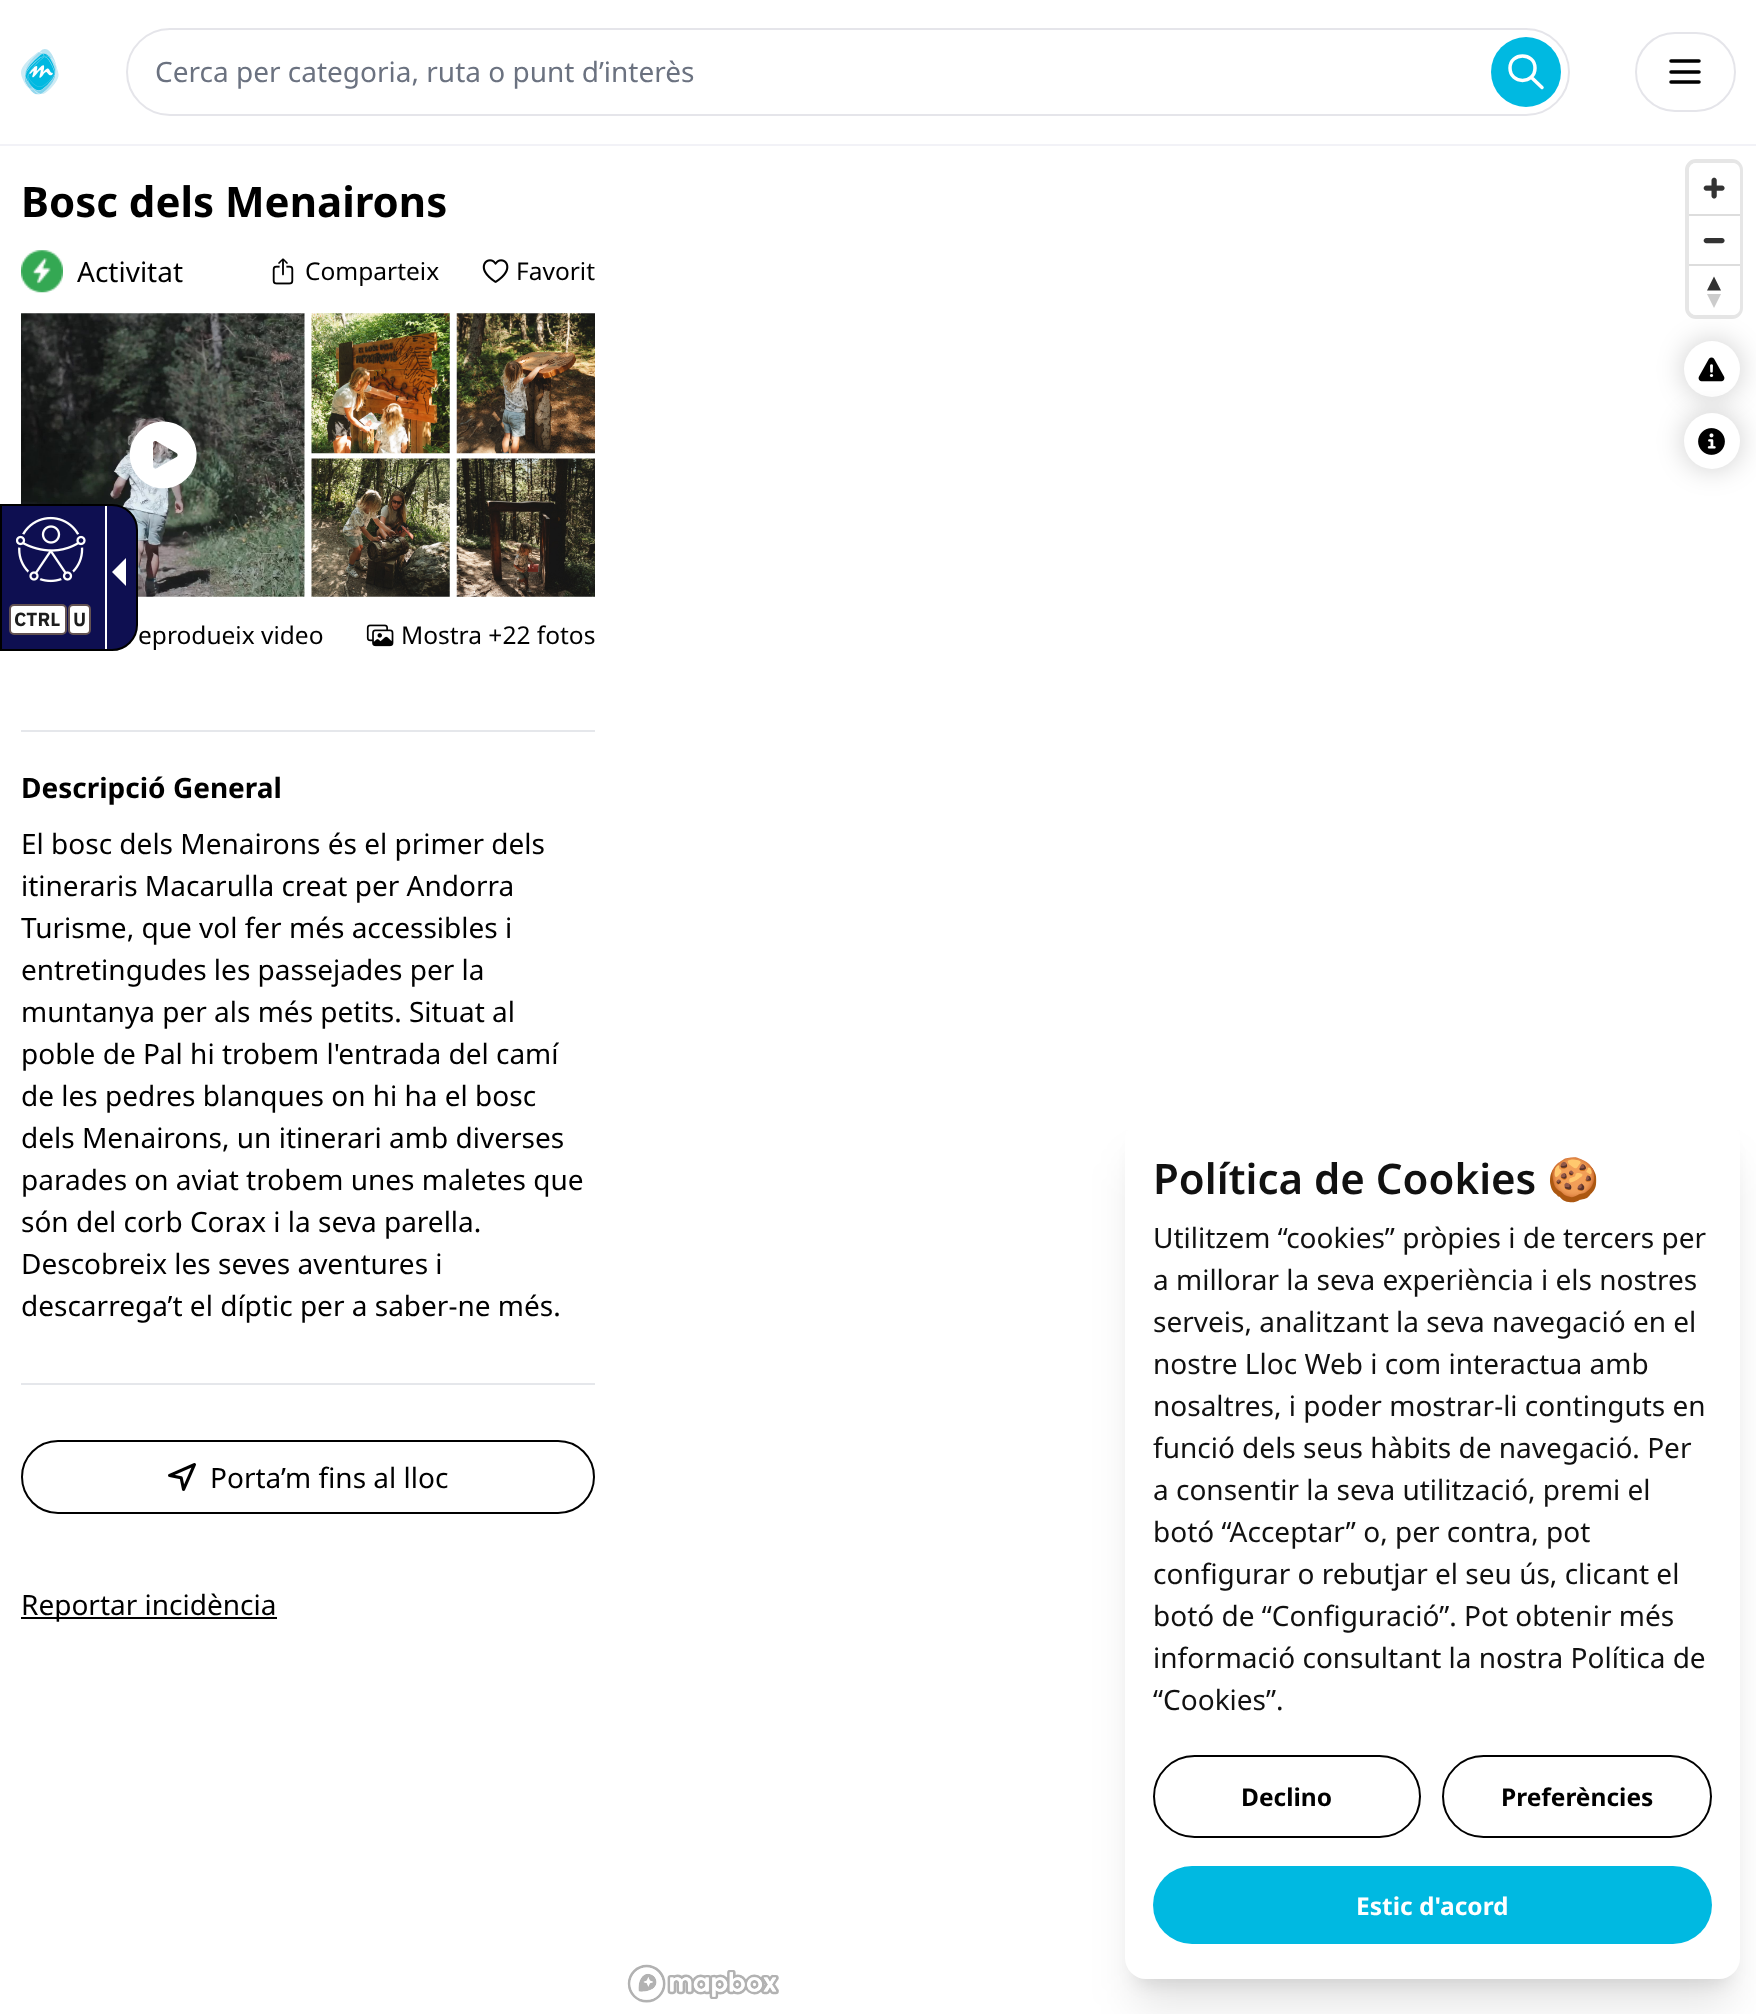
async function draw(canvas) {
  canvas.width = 1756
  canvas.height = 2014
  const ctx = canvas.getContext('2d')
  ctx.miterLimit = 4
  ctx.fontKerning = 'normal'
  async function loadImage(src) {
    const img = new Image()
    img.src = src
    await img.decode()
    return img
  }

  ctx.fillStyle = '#fff'
  ctx.fillRect(0, 0, 1756, 2014)
  ctx.fillStyle = '#f2f2f7'
  ctx.fillRect(0, 144, 1756, 2)
  ctx.drawImage(await loadImage('image0.png'), 21, 49, 38, 46)
  ctx.beginPath()
  ctx.roundRect(127, 29, 1442, 86, 43)
  ctx.strokeStyle = '#e5e5ea'
  ctx.lineWidth = 2
  ctx.stroke()
  ctx.font = '28px Noto Sans'
  ctx.fillStyle = '#6b7280'
  ctx.fillText('Cerca per categoria, ruta o punt d’interès', 155, 82)
  ctx.fillStyle = '#00b9e1'
  ctx.beginPath()
  ctx.arc(1526, 72, 35, 0, 2 * Math.PI)
  ctx.fill()
  ctx.beginPath()
  ctx.moveTo(1542, 87.5)
  ctx.lineTo(1531, 77)
  ctx.moveTo(1535, 68)
  ctx.bezierCurveTo(1535, 84.5, 1510, 84.5, 1510, 68)
  ctx.bezierCurveTo(1510, 52, 1535, 52, 1535, 68)
  ctx.closePath()
  ctx.strokeStyle = '#fff'
  ctx.lineWidth = 3.5
  ctx.lineCap = 'round'
  ctx.lineJoin = 'round'
  ctx.stroke()
  ctx.beginPath()
  ctx.roundRect(1636, 33, 99, 78, 39)
  ctx.strokeStyle = '#e5e5ea'
  ctx.lineWidth = 2
  ctx.lineJoin = 'miter'
  ctx.stroke()
  ctx.beginPath()
  ctx.moveTo(1671, 61)
  ctx.lineTo(1699, 61)
  ctx.moveTo(1671, 72)
  ctx.lineTo(1699, 72)
  ctx.moveTo(1671, 82)
  ctx.lineTo(1699, 82)
  ctx.strokeStyle = '#000'
  ctx.lineWidth = 3.5
  ctx.lineJoin = 'round'
  ctx.stroke()
  ctx.font = 'bold 42px Noto Sans'
  ctx.fillStyle = '#000'
  ctx.fillText('Bosc dels Menairons', 21, 217)
  ctx.drawImage(await loadImage('image1.png'), 21, 250, 42, 43)
  ctx.font = '28px Noto Sans'
  ctx.fillText('Activitat', 77, 282)
  ctx.drawImage(await loadImage('image2.png'), 272, 258, 22, 27)
  ctx.font = '24.5px Noto Sans'
  ctx.fillText('Comparteix', 305, 280)
  ctx.drawImage(await loadImage('image3.png'), 482, 259, 27, 24)
  ctx.fillText('Favorit', 516, 280)
  ctx.drawImage(await loadImage('image4.png'), 21, 313, 284, 284)
  ctx.drawImage(await loadImage('image5.png'), 114, 413, 95, 97)
  ctx.drawImage(await loadImage('image6.png'), 311, 313, 139, 141)
  ctx.drawImage(await loadImage('image7.png'), 311, 458, 139, 139)
  ctx.drawImage(await loadImage('image8.png'), 456, 313, 139, 141)
  ctx.drawImage(await loadImage('image9.png'), 456, 458, 139, 139)
  ctx.fillText('eprodueix video', 138, 644)
  ctx.drawImage(await loadImage('image10.png'), 366, 624, 28, 23)
  ctx.fillText('Mostra +22 fotos', 401, 644)
  ctx.fillStyle = '#e5e7eb'
  ctx.fillRect(21, 730, 574, 2)
  ctx.font = 'bold 28px Noto Sans'
  ctx.fillStyle = '#000'
  ctx.fillText('Descripció General', 21, 798)
  ctx.font = '28px Noto Sans'
  ctx.fillText('El bosc dels Menairons és el primer dels', 21, 854)
  ctx.fillText('itineraris Macarulla creat per Andorra', 21, 896)
  ctx.fillText('Turisme, que vol fer més accessibles i', 21, 938)
  ctx.fillText('entretingudes les passejades per la', 21, 980)
  ctx.fillText('muntanya per als més petits. Situat al', 21, 1022)
  ctx.fillText('poble de Pal hi trobem l\'entrada del camí', 21, 1064)
  ctx.fillText('de les pedres blanques on hi ha el bosc', 21, 1106)
  ctx.fillText('dels Menairons, un itinerari amb diverses', 21, 1148)
  ctx.fillText('parades on aviat trobem unes maletes que', 21, 1190)
  ctx.fillText('són del corb Corax i la seva parella.', 21, 1232)
  ctx.fillText('Descobreix les seves aventures i', 21, 1274)
  ctx.fillText('descarrega’t el díptic per a saber-ne més.', 21, 1316)
  ctx.fillStyle = '#e5e7eb'
  ctx.fillRect(21, 1383, 574, 2)
  ctx.beginPath()
  ctx.roundRect(22, 1441, 572, 72, 36)
  ctx.lineWidth = 2
  ctx.lineJoin = 'miter'
  ctx.stroke()
  ctx.drawImage(await loadImage('image11.png'), 168, 1463, 28, 28)
  ctx.fillStyle = '#000'
  ctx.fillText('Porta’m fins al lloc', 210, 1488)
  ctx.fillRect(21, 1617, 256, 2)
  ctx.fillText('Reportar incidència', 21, 1615)
  ctx.beginPath()
  ctx.roundRect(1687, 161, 54, 156, 9)
  ctx.strokeStyle = '#e6e6e6'
  ctx.lineWidth = 4
  ctx.stroke()
  ctx.fillStyle = '#fff'
  ctx.beginPath()
  ctx.roundRect(1689, 163, 51, 152, 7)
  ctx.fill()
  ctx.drawImage(await loadImage('image12.png'), 1703, 177, 22, 22)
  ctx.fillStyle = '#ddd'
  ctx.fillRect(1689, 214, 51, 2)
  ctx.drawImage(await loadImage('image13.png'), 1703, 238, 22, 6)
  ctx.fillRect(1689, 264, 51, 2)
  ctx.fillStyle = '#333'
  ctx.beginPath()
  ctx.moveTo(1707, 290.5)
  ctx.lineTo(1714, 276.5)
  ctx.lineTo(1721, 290.5)
  ctx.closePath()
  ctx.fill()
  ctx.fillStyle = '#ccc'
  ctx.beginPath()
  ctx.moveTo(1707, 294)
  ctx.lineTo(1714, 308)
  ctx.lineTo(1721, 294)
  ctx.closePath()
  ctx.fill()
  ctx.drawImage(await loadImage('image14.png'), 627, 1964, 152, 39)
  ctx.fillStyle = '#00000033'
  ctx.filter = 'blur(14px)'
  ctx.beginPath()
  ctx.roundRect(1684, 341, 56, 56, 28)
  ctx.fill()
  ctx.filter = 'none'
  ctx.fillStyle = '#fff'
  ctx.beginPath()
  ctx.arc(1712, 369, 28, 0, 2 * Math.PI)
  ctx.fill()
  ctx.drawImage(await loadImage('image15.png'), 1698, 357, 27, 25)
  ctx.fillStyle = '#00000033'
  ctx.filter = 'blur(14px)'
  ctx.beginPath()
  ctx.roundRect(1684, 413, 56, 56, 28)
  ctx.fill()
  ctx.filter = 'none'
  ctx.fillStyle = '#fff'
  ctx.beginPath()
  ctx.arc(1712, 441, 28, 0, 2 * Math.PI)
  ctx.fill()
  ctx.drawImage(await loadImage('image16.png'), 1698, 428, 27, 27)
  ctx.fillStyle = '#0e0f51'
  ctx.beginPath()
  ctx.roundRect(1, 505, 136, 145, [0, 25, 25, 0])
  ctx.fill()
  ctx.strokeStyle = '#000'
  ctx.lineWidth = 2
  ctx.stroke()
  ctx.fillStyle = '#fff'
  ctx.beginPath()
  ctx.moveTo(126, 558)
  ctx.lineTo(126, 586)
  ctx.lineTo(112, 572)
  ctx.closePath()
  ctx.fill()
  ctx.fillRect(105, 506, 2, 143)
  ctx.drawImage(await loadImage('image17.png'), 16, 516, 70, 67)
  ctx.beginPath()
  ctx.roundRect(10, 605, 56, 29, 4)
  ctx.fill()
  ctx.strokeStyle = '#635252'
  ctx.stroke()
  ctx.font = 'bold 19px IBM Plex Sans'
  ctx.fillStyle = '#1d1d1d'
  ctx.fillText('CTRL', 14, 626)
  ctx.fillStyle = '#fff'
  ctx.beginPath()
  ctx.roundRect(69, 605, 21, 29, 4)
  ctx.fill()
  ctx.stroke()
  ctx.fillStyle = '#1d1d1d'
  ctx.fillText('U', 73, 626)
  ctx.fillStyle = '#0000001a'
  ctx.filter = 'blur(9px)'
  ctx.beginPath()
  ctx.roundRect(1136, 1143, 593, 840, 11)
  ctx.fill()
  ctx.filter = 'none'
  ctx.filter = 'blur(22px)'
  ctx.beginPath()
  ctx.roundRect(1134, 1162, 597, 844, 12)
  ctx.fill()
  ctx.filter = 'none'
  ctx.fillStyle = '#fff'
  ctx.beginPath()
  ctx.roundRect(1125, 1118, 615, 861, 21)
  ctx.fill()
  ctx.font = '600 42px Noto Sans'
  ctx.fillStyle = '#111'
  ctx.fillText('Política de Cookies', 1153, 1194)
  ctx.font = 'bold 42px Noto Color Emoji'
  ctx.fillText('🍪', 1547, 1194)
  ctx.font = '28px Noto Sans'
  ctx.fillText('Utilitzem “cookies” pròpies i de tercers per', 1153, 1248)
  ctx.fillText('a millorar la seva experiència i els nostres', 1153, 1290)
  ctx.fillText('serveis, analitzant la seva navegació en el', 1153, 1332)
  ctx.fillText('nostre Lloc Web i com interactua amb', 1153, 1374)
  ctx.fillText('nosaltres, i poder mostrar-li continguts en', 1153, 1416)
  ctx.fillText('funció dels seus hàbits de navegació. Per', 1153, 1458)
  ctx.fillText('a consentir la seva utilització, premi el', 1153, 1500)
  ctx.fillText('botó “Acceptar” o, per contra, pot', 1153, 1542)
  ctx.fillText('configurar o rebutjar el seu ús, clicant el', 1153, 1584)
  ctx.fillText('botó de “Configuració”. Pot obtenir més', 1153, 1626)
  ctx.fillText('informació consultant la nostra Política de', 1153, 1668)
  ctx.fillText('“Cookies”.', 1153, 1710)
  ctx.beginPath()
  ctx.roundRect(1154, 1756, 266, 81, 40.5)
  ctx.strokeStyle = '#000'
  ctx.stroke()
  ctx.font = 'bold 24.5px Noto Sans'
  ctx.fillStyle = '#000'
  ctx.fillText('Declino', 1241, 1806)
  ctx.beginPath()
  ctx.roundRect(1443, 1756, 268, 81, 40.5)
  ctx.stroke()
  ctx.fillText('Preferències', 1501, 1806)
  ctx.fillStyle = '#00b9e1'
  ctx.beginPath()
  ctx.roundRect(1153, 1866, 559, 78, 39)
  ctx.fill()
  ctx.fillStyle = '#fff'
  ctx.fillText('Estic d\'acord', 1356, 1915)
}

draw(document.querySelector('canvas'))
